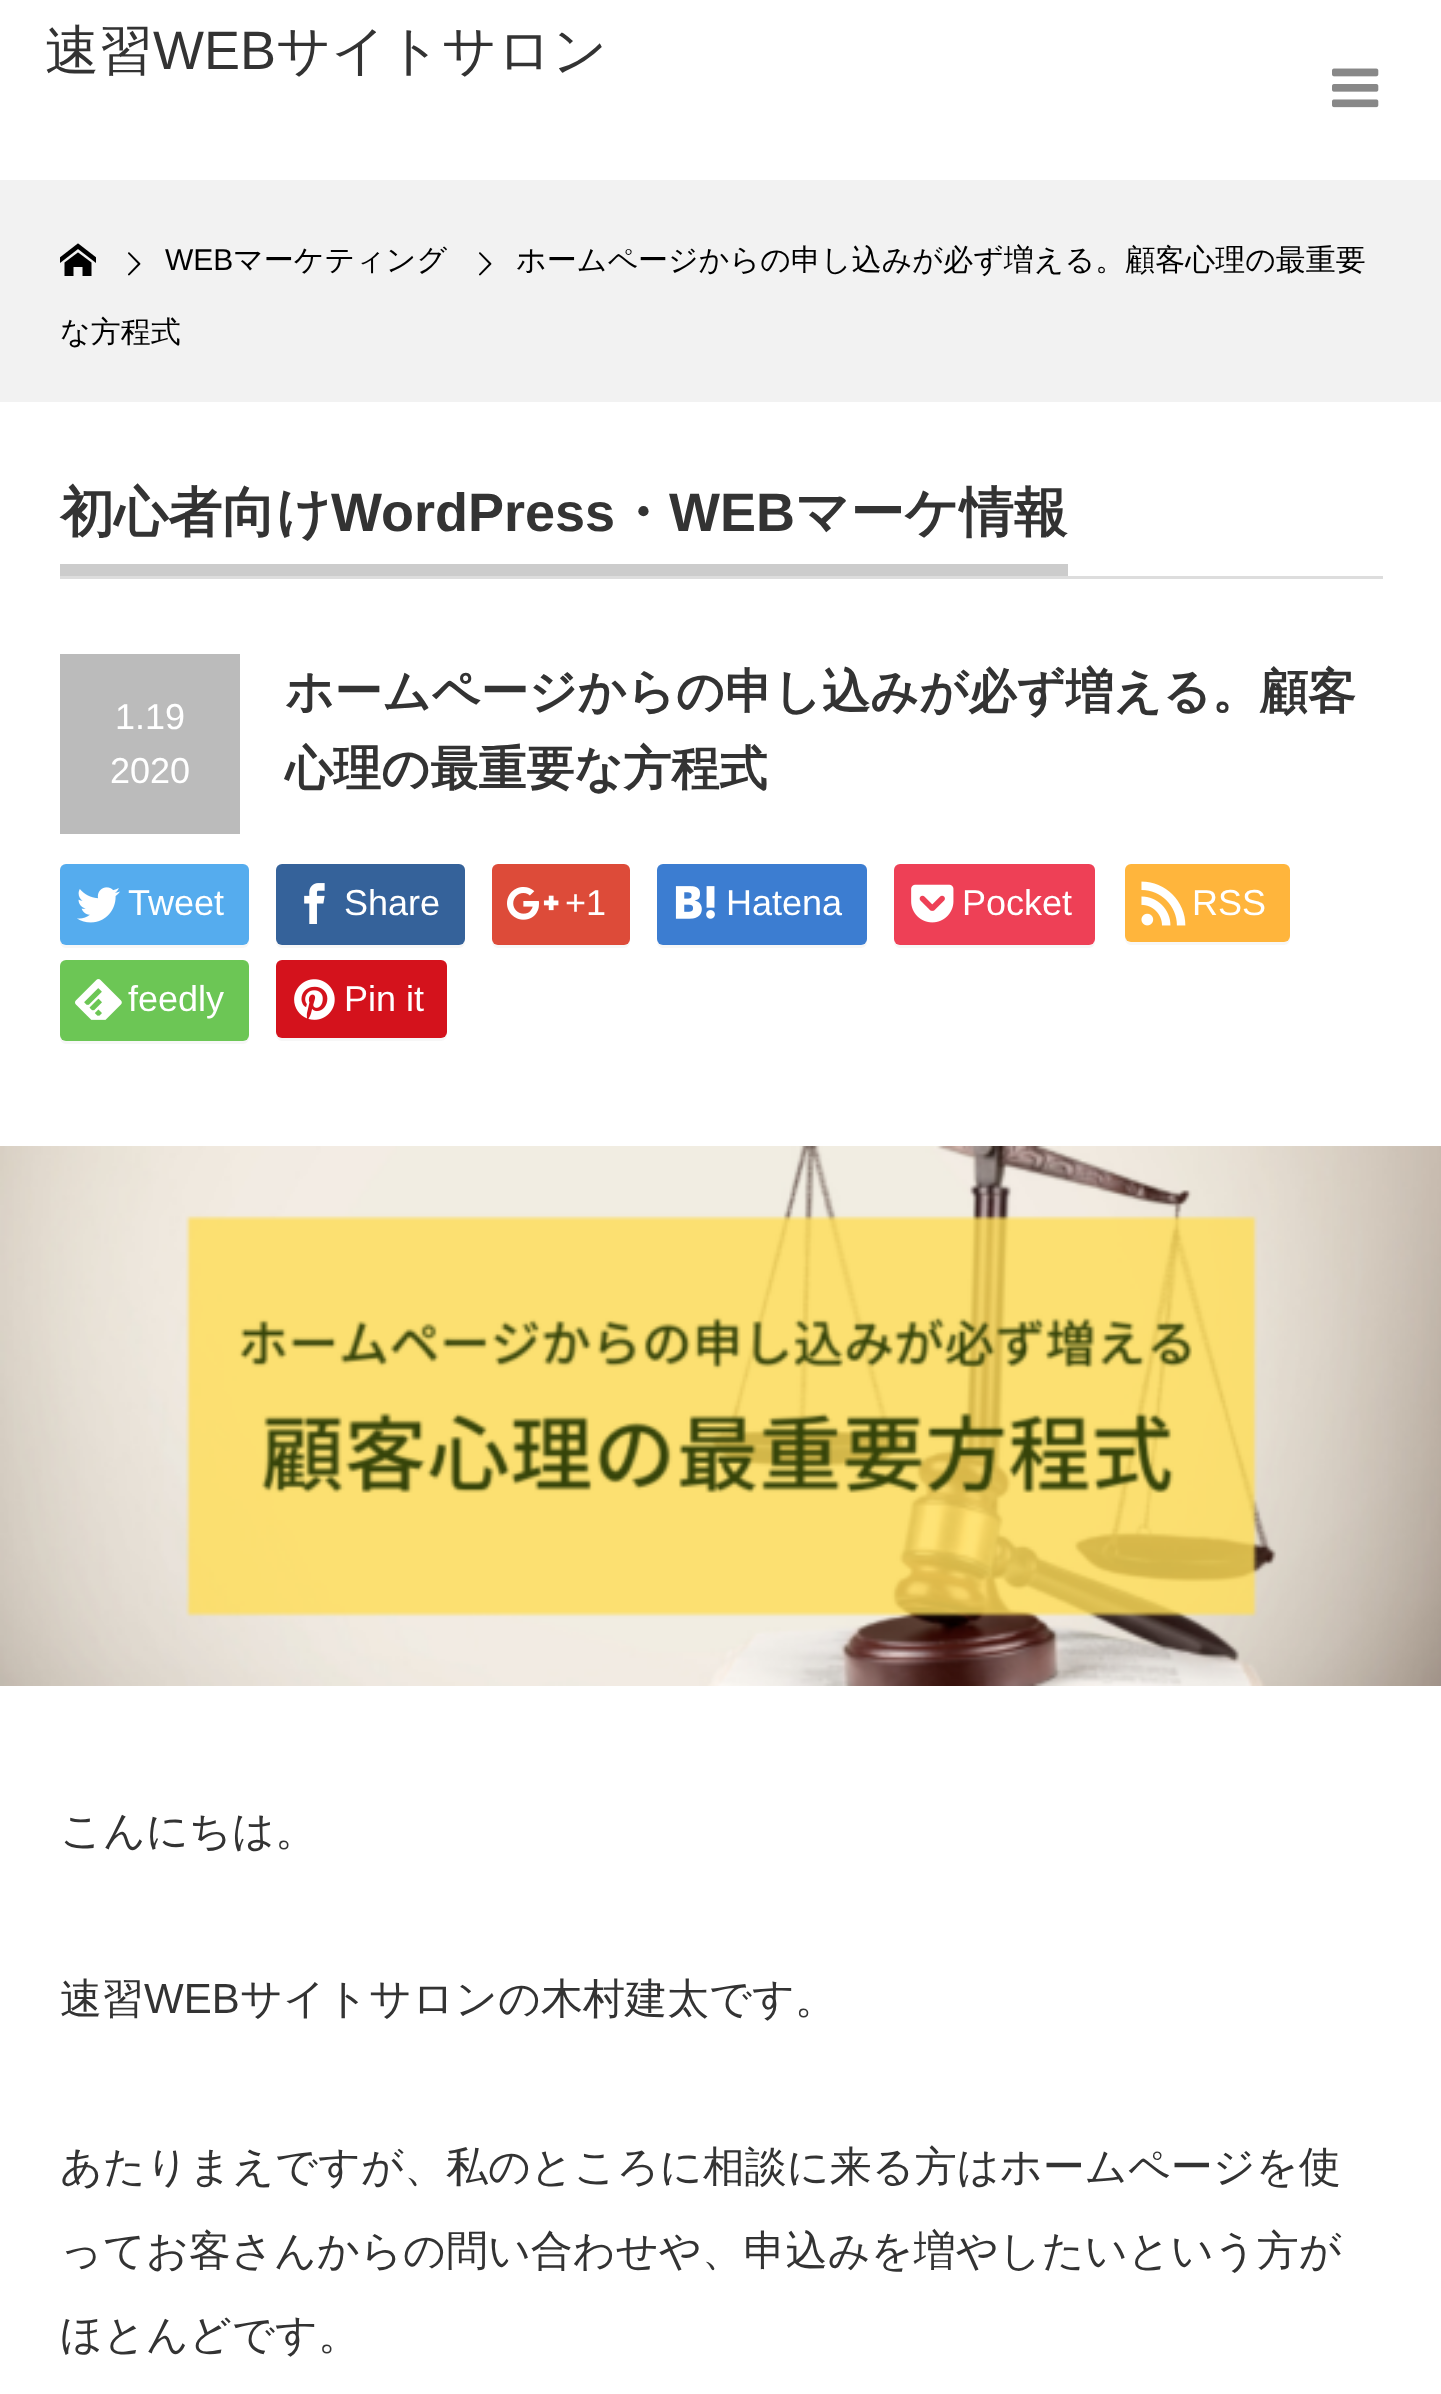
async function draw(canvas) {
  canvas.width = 1441
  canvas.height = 2394
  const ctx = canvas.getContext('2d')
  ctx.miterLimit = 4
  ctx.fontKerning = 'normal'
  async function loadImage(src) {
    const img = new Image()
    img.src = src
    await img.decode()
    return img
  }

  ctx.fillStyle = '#fff'
  ctx.fillRect(0, 0, 1441, 2394)
  ctx.font = '500 54px WenQuanYi Zen Hei'
  ctx.fillStyle = '#333'
  ctx.fillText('速習', 45, 69)
  ctx.font = '54px Liberation Sans'
  ctx.fillText('WEB', 153, 69)
  ctx.font = '500 54px WenQuanYi Zen Hei'
  ctx.fillText('サイトサロン', 276, 69)
  ctx.drawImage(await loadImage('image0.png'), 1332, 68, 47, 40)
  ctx.fillStyle = '#f2f2f2'
  ctx.fillRect(0, 180, 1441, 222)
  ctx.drawImage(await loadImage('image1.png'), 60, 243, 36, 33)
  ctx.drawImage(await loadImage('image2.png'), 479, 252, 13, 24)
  ctx.font = '500 30px WenQuanYi Zen Hei'
  ctx.fillStyle = '#000'
  ctx.fillText('ホームページからの申し込みが必ず増える。顧客心理の最重要', 516, 270)
  ctx.fillText('な方程式', 60, 342)
  ctx.drawImage(await loadImage('image2.png'), 128, 252, 13, 24)
  ctx.font = '30px Liberation Sans'
  ctx.fillText('WEB', 165, 270)
  ctx.font = '500 30px WenQuanYi Zen Hei'
  ctx.fillText('マーケティング', 233, 270)
  ctx.fillStyle = '#ddd'
  ctx.fillRect(60, 576, 1323, 3)
  ctx.fillStyle = '#ccc'
  ctx.fillRect(60, 564, 1008, 12)
  ctx.font = 'bold 54px WenQuanYi Zen Hei'
  ctx.fillStyle = '#333'
  ctx.fillText('初心者向け', 60, 531)
  ctx.font = 'bold 54px Liberation Sans'
  ctx.fillText('WordPress', 331, 531)
  ctx.font = 'bold 54px WenQuanYi Zen Hei'
  ctx.fillText('・', 615, 531)
  ctx.font = 'bold 54px Liberation Sans'
  ctx.fillText('WEB', 669, 531)
  ctx.font = 'bold 54px WenQuanYi Zen Hei'
  ctx.fillText('マーケ情報', 795, 531)
  ctx.fillStyle = '#bbb'
  ctx.fillRect(60, 654, 180, 180)
  ctx.font = '36px Liberation Sans'
  ctx.fillStyle = '#fff'
  ctx.fillText('1.19', 115, 729)
  ctx.fillText('2020', 110, 783)
  ctx.font = 'bold 48px WenQuanYi Zen Hei'
  ctx.fillStyle = '#333'
  ctx.fillText('ホームページからの申し込みが必ず増える。顧客', 285, 708)
  ctx.fillText('心理の最重要な方程式', 285, 785)
  ctx.fillStyle = '#f7f7f7'
  ctx.beginPath()
  ctx.moveTo(60, 939)
  ctx.lineTo(60, 942)
  ctx.bezierCurveTo(60, 945, 63, 948, 66, 948)
  ctx.lineTo(243, 948)
  ctx.bezierCurveTo(246, 948, 249, 945, 249, 942)
  ctx.lineTo(249, 939)
  ctx.bezierCurveTo(249, 942, 246, 945, 243, 945)
  ctx.lineTo(66, 945)
  ctx.bezierCurveTo(63, 945, 60, 942, 60, 939)
  ctx.closePath()
  ctx.fill()
  ctx.fillStyle = '#55acee'
  ctx.beginPath()
  ctx.roundRect(60, 864, 189, 81, 6)
  ctx.fill()
  ctx.drawImage(await loadImage('image3.png'), 77, 887, 43, 36)
  ctx.font = '36px Liberation Sans'
  ctx.fillStyle = '#fff'
  ctx.fillText('Tweet', 128, 915)
  ctx.fillStyle = '#f7f7f7'
  ctx.beginPath()
  ctx.moveTo(276, 939)
  ctx.lineTo(276, 942)
  ctx.bezierCurveTo(276, 945, 279, 948, 282, 948)
  ctx.lineTo(459, 948)
  ctx.bezierCurveTo(462, 948, 465, 945, 465, 942)
  ctx.lineTo(465, 939)
  ctx.bezierCurveTo(465, 942, 462, 945, 459, 945)
  ctx.lineTo(282, 945)
  ctx.bezierCurveTo(279, 945, 276, 942, 276, 939)
  ctx.closePath()
  ctx.fill()
  ctx.fillStyle = '#35629a'
  ctx.beginPath()
  ctx.roundRect(276, 864, 189, 81, 6)
  ctx.fill()
  ctx.drawImage(await loadImage('image4.png'), 304, 883, 21, 41)
  ctx.fillStyle = '#fff'
  ctx.fillText('Share', 344, 915)
  ctx.fillStyle = '#f7f7f7'
  ctx.beginPath()
  ctx.moveTo(492, 939)
  ctx.lineTo(492, 942)
  ctx.bezierCurveTo(492, 945, 495, 948, 498, 948)
  ctx.lineTo(624, 948)
  ctx.bezierCurveTo(627, 948, 630, 945, 630, 942)
  ctx.lineTo(630, 939)
  ctx.bezierCurveTo(630, 942, 627, 945, 624, 945)
  ctx.lineTo(498, 945)
  ctx.bezierCurveTo(495, 945, 492, 942, 492, 939)
  ctx.closePath()
  ctx.fill()
  ctx.fillStyle = '#dd4b39'
  ctx.beginPath()
  ctx.roundRect(492, 864, 138, 81, 6)
  ctx.fill()
  ctx.drawImage(await loadImage('image5.png'), 507, 887, 52, 33)
  ctx.fillStyle = '#fff'
  ctx.fillText('+1', 565, 915)
  ctx.fillStyle = '#f7f7f7'
  ctx.beginPath()
  ctx.moveTo(657, 939)
  ctx.lineTo(657, 942)
  ctx.bezierCurveTo(657, 945, 660, 948, 663, 948)
  ctx.lineTo(861, 948)
  ctx.bezierCurveTo(864, 948, 867, 945, 867, 942)
  ctx.lineTo(867, 939)
  ctx.bezierCurveTo(867, 942, 864, 945, 861, 945)
  ctx.lineTo(663, 945)
  ctx.bezierCurveTo(660, 945, 657, 942, 657, 939)
  ctx.closePath()
  ctx.fill()
  ctx.fillStyle = '#3c7dd1'
  ctx.beginPath()
  ctx.roundRect(657, 864, 210, 81, 6)
  ctx.fill()
  ctx.drawImage(await loadImage('image6.png'), 675, 886, 40, 33)
  ctx.fillStyle = '#fff'
  ctx.fillText('Hatena', 726, 915)
  ctx.fillStyle = '#f7f7f7'
  ctx.beginPath()
  ctx.moveTo(894, 939)
  ctx.lineTo(894, 942)
  ctx.bezierCurveTo(894, 945, 897, 948, 900, 948)
  ctx.lineTo(1089, 948)
  ctx.bezierCurveTo(1092, 948, 1095, 945, 1095, 942)
  ctx.lineTo(1095, 939)
  ctx.bezierCurveTo(1095, 942, 1092, 945, 1089, 945)
  ctx.lineTo(900, 945)
  ctx.bezierCurveTo(897, 945, 894, 942, 894, 939)
  ctx.closePath()
  ctx.fill()
  ctx.fillStyle = '#ee4056'
  ctx.beginPath()
  ctx.roundRect(894, 864, 201, 81, 6)
  ctx.fill()
  ctx.drawImage(await loadImage('image7.png'), 911, 884, 43, 39)
  ctx.fillStyle = '#fff'
  ctx.fillText('Pocket', 962, 915)
  ctx.fillStyle = '#f7f7f7'
  ctx.beginPath()
  ctx.moveTo(1125, 936)
  ctx.lineTo(1125, 939)
  ctx.bezierCurveTo(1125, 942, 1128, 945, 1131, 945)
  ctx.lineTo(1284, 945)
  ctx.bezierCurveTo(1287, 945, 1290, 942, 1290, 939)
  ctx.lineTo(1290, 936)
  ctx.bezierCurveTo(1290, 939, 1287, 942, 1284, 942)
  ctx.lineTo(1131, 942)
  ctx.bezierCurveTo(1128, 942, 1125, 939, 1125, 936)
  ctx.closePath()
  ctx.fill()
  ctx.fillStyle = '#ffb53c'
  ctx.beginPath()
  ctx.roundRect(1125, 864, 165, 78, 6)
  ctx.fill()
  ctx.drawImage(await loadImage('image8.png'), 1141, 881, 45, 45)
  ctx.fillStyle = '#fff'
  ctx.fillText('RSS', 1192, 915)
  ctx.fillStyle = '#f7f7f7'
  ctx.beginPath()
  ctx.moveTo(60, 1035)
  ctx.lineTo(60, 1038)
  ctx.bezierCurveTo(60, 1041, 63, 1044, 66, 1044)
  ctx.lineTo(243, 1044)
  ctx.bezierCurveTo(246, 1044, 249, 1041, 249, 1038)
  ctx.lineTo(249, 1035)
  ctx.bezierCurveTo(249, 1038, 246, 1041, 243, 1041)
  ctx.lineTo(66, 1041)
  ctx.bezierCurveTo(63, 1041, 60, 1038, 60, 1035)
  ctx.closePath()
  ctx.fill()
  ctx.fillStyle = '#6cc655'
  ctx.beginPath()
  ctx.roundRect(60, 960, 189, 81, 6)
  ctx.fill()
  ctx.drawImage(await loadImage('image9.png'), 75, 979, 47, 41)
  ctx.fillStyle = '#fff'
  ctx.fillText('feedly', 128, 1011)
  ctx.fillStyle = '#f7f7f7'
  ctx.beginPath()
  ctx.moveTo(276, 1032)
  ctx.lineTo(276, 1035)
  ctx.bezierCurveTo(276, 1038, 279, 1041, 282, 1041)
  ctx.lineTo(441, 1041)
  ctx.bezierCurveTo(444, 1041, 447, 1038, 447, 1035)
  ctx.lineTo(447, 1032)
  ctx.bezierCurveTo(447, 1035, 444, 1038, 441, 1038)
  ctx.lineTo(282, 1038)
  ctx.bezierCurveTo(279, 1038, 276, 1035, 276, 1032)
  ctx.closePath()
  ctx.fill()
  ctx.fillStyle = '#d4121c'
  ctx.beginPath()
  ctx.roundRect(276, 960, 171, 78, 6)
  ctx.fill()
  ctx.drawImage(await loadImage('image10.png'), 294, 979, 41, 41)
  ctx.fillStyle = '#fff'
  ctx.fillText('Pin it', 344, 1011)
  ctx.drawImage(await loadImage('image11.png'), 0, 1146, 1441, 540)
  ctx.font = '500 42px WenQuanYi Zen Hei'
  ctx.fillStyle = '#333'
  ctx.fillText('こんにちは。', 60, 1845)
  ctx.fillText('速習', 60, 2013)
  ctx.font = '42px Liberation Sans'
  ctx.fillText('WEB', 144, 2013)
  ctx.font = '500 42px WenQuanYi Zen Hei'
  ctx.fillText('サイトサロンの木村建太です。', 240, 2013)
  ctx.fillText('あたりまえですが、私のところに相談に来る方はホームページを使', 60, 2181)
  ctx.fillText('ってお客さんからの問い合わせや、申込みを増やしたいという方が', 60, 2265)
  ctx.fillText('ほとんどです。', 60, 2349)
}

draw(document.querySelector('canvas'))
